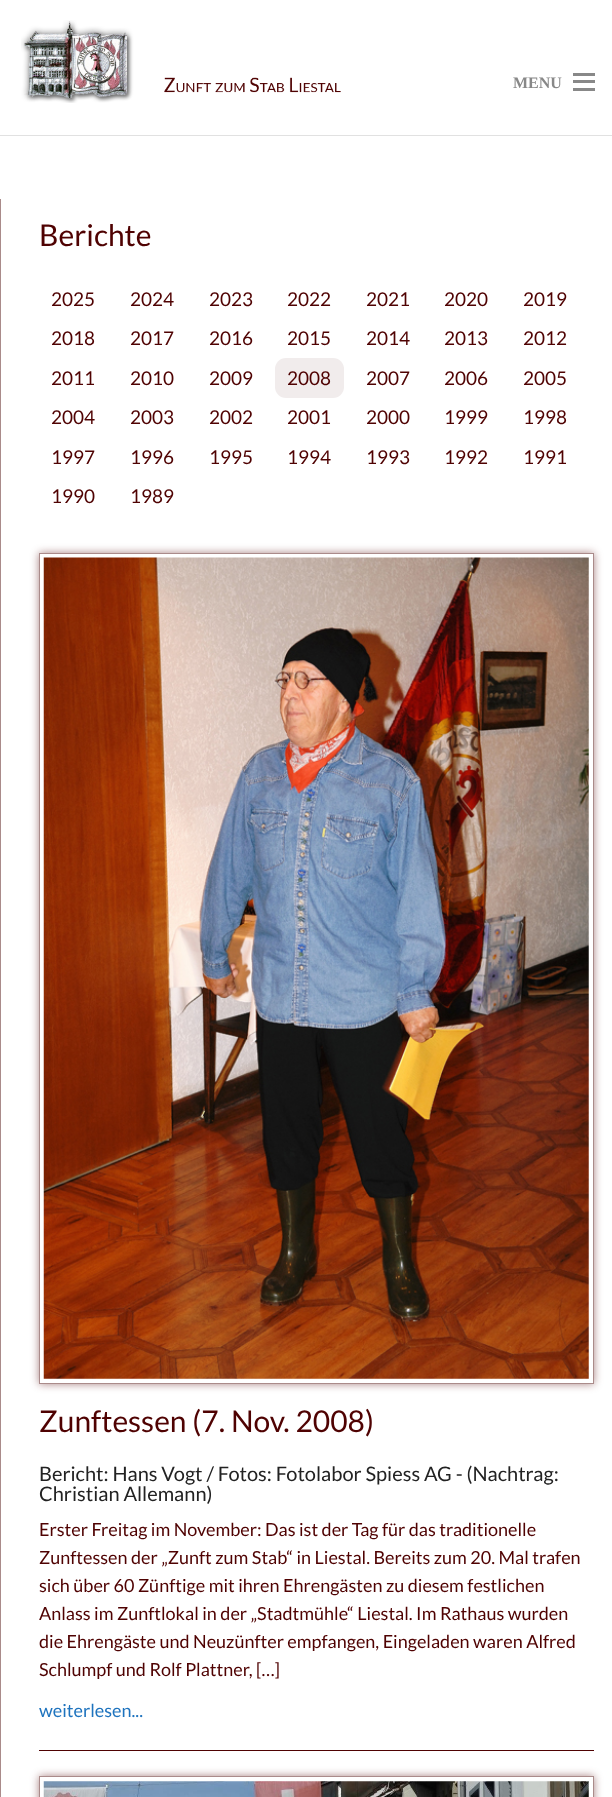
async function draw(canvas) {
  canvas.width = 612
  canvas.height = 1797
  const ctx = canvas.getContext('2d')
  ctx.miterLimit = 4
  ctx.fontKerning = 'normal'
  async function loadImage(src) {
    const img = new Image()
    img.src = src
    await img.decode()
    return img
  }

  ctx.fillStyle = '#fff'
  ctx.fillRect(0, 0, 612, 1797)
  ctx.fillStyle = '#e1e1e1'
  ctx.fillRect(0, 135, 612, 1)
  ctx.drawImage(await loadImage('image0.png'), 21, 20, 320, 83)
  ctx.font = 'bold 16px Liberation Serif'
  ctx.fillStyle = '#888'
  ctx.fillText('MENU', 513, 88)
  ctx.fillRect(573, 88, 22, 3)
  ctx.fillRect(573, 80, 22, 3)
  ctx.fillRect(573, 73, 22, 3)
  ctx.fillStyle = '#aa8b8a'
  ctx.fillRect(0, 199, 1, 1598)
  ctx.font = '30px Lato'
  ctx.fillStyle = '#4f0202'
  ctx.fillText('Berichte', 39, 246)
  ctx.font = '19px Lato'
  ctx.fillText('2025', 51, 306)
  ctx.fillText('2024', 130, 306)
  ctx.fillText('2023', 209, 306)
  ctx.fillText('2022', 287, 306)
  ctx.fillText('2021', 366, 306)
  ctx.fillText('2020', 444, 306)
  ctx.fillText('2019', 523, 306)
  ctx.fillText('2018', 51, 345)
  ctx.fillText('2017', 130, 345)
  ctx.fillText('2016', 209, 345)
  ctx.fillText('2015', 287, 345)
  ctx.fillText('2014', 366, 345)
  ctx.fillText('2013', 444, 345)
  ctx.fillText('2012', 523, 345)
  ctx.fillText('2011', 51, 385)
  ctx.fillText('2010', 130, 385)
  ctx.fillText('2009', 209, 385)
  ctx.fillStyle = '#f1ecec'
  ctx.beginPath()
  ctx.roundRect(275, 358, 69, 40, 11)
  ctx.fill()
  ctx.fillStyle = '#4f0202'
  ctx.fillText('2008', 287, 385)
  ctx.fillText('2007', 366, 385)
  ctx.fillText('2006', 444, 385)
  ctx.fillText('2005', 523, 385)
  ctx.fillText('2004', 51, 424)
  ctx.fillText('2003', 130, 424)
  ctx.fillText('2002', 209, 424)
  ctx.fillText('2001', 287, 424)
  ctx.fillText('2000', 366, 424)
  ctx.fillText('1999', 444, 424)
  ctx.fillText('1998', 523, 424)
  ctx.fillText('1997', 51, 464)
  ctx.fillText('1996', 130, 464)
  ctx.fillText('1995', 209, 464)
  ctx.fillText('1994', 287, 464)
  ctx.fillText('1993', 366, 464)
  ctx.fillText('1992', 444, 464)
  ctx.fillText('1991', 523, 464)
  ctx.fillText('1990', 51, 503)
  ctx.fillText('1989', 130, 503)
  ctx.fillRect(39, 1750, 555, 1)
  ctx.save()
  ctx.beginPath()
  ctx.moveTo(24, 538)
  ctx.lineTo(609, 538)
  ctx.lineTo(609, 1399)
  ctx.lineTo(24, 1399)
  ctx.closePath()
  ctx.moveTo(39, 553)
  ctx.lineTo(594, 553)
  ctx.lineTo(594, 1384)
  ctx.lineTo(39, 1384)
  ctx.closePath()
  ctx.clip('evenodd')
  ctx.fillStyle = '#4f01017d'
  ctx.filter = 'blur(4.5px)'
  ctx.beginPath()
  ctx.rect(39, 553, 555, 831)
  ctx.fill()
  ctx.filter = 'none'
  ctx.restore()
  ctx.strokeStyle = '#aa8b8a'
  ctx.strokeRect(39.5, 553.5, 554, 830)
  ctx.drawImage(await loadImage('image1.png'), 43, 557, 546, 822)
  ctx.font = '30px Lato'
  ctx.fillText('Zunftessen (7. Nov. 2008)', 39, 1432)
  ctx.font = '20px Lato'
  ctx.fillStyle = '#222'
  ctx.fillText('Bericht: Hans Vogt / Fotos: Fotolabor Spiess AG - (Nachtrag:', 39, 1481)
  ctx.fillText('Christian Allemann)', 39, 1501)
  ctx.font = '18px Lato'
  ctx.fillStyle = '#4f0202'
  ctx.fillText('Erster Freitag im November: Das ist der Tag für das traditionelle', 39, 1536)
  ctx.fillText('Zunftessen der „Zunft zum Stab“ in Liestal. Bereits zum 20. Mal trafen', 39, 1564)
  ctx.fillText('sich über 60 Zünftige mit ihren Ehrengästen zu diesem festlichen', 39, 1592)
  ctx.fillText('Anlass im Zunftlokal in der „Stadtmühle“ Liestal. Im Rathaus wurden', 39, 1620)
  ctx.fillText('die Ehrengäste und Neuzünfter empfangen, Eingeladen waren Alfred', 39, 1648)
  ctx.fillText('Schlumpf und Rolf Plattner, […]', 39, 1676)
  ctx.fillStyle = '#1e73be'
  ctx.fillText('weiterlesen...', 39, 1717)
  ctx.save()
  ctx.beginPath()
  ctx.moveTo(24, 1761)
  ctx.lineTo(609, 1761)
  ctx.lineTo(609, 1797)
  ctx.lineTo(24, 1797)
  ctx.closePath()
  ctx.moveTo(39, 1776)
  ctx.lineTo(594, 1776)
  ctx.lineTo(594, 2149)
  ctx.lineTo(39, 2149)
  ctx.closePath()
  ctx.clip('evenodd')
  ctx.fillStyle = '#4f01017d'
  ctx.filter = 'blur(4.5px)'
  ctx.beginPath()
  ctx.rect(39, 1776, 555, 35)
  ctx.fill()
  ctx.filter = 'none'
  ctx.restore()
  ctx.strokeRect(39.5, 1776.5, 554, 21)
  ctx.drawImage(await loadImage('image2.png'), 43, 1781, 546, 16)
}

draw(document.querySelector('canvas'))
